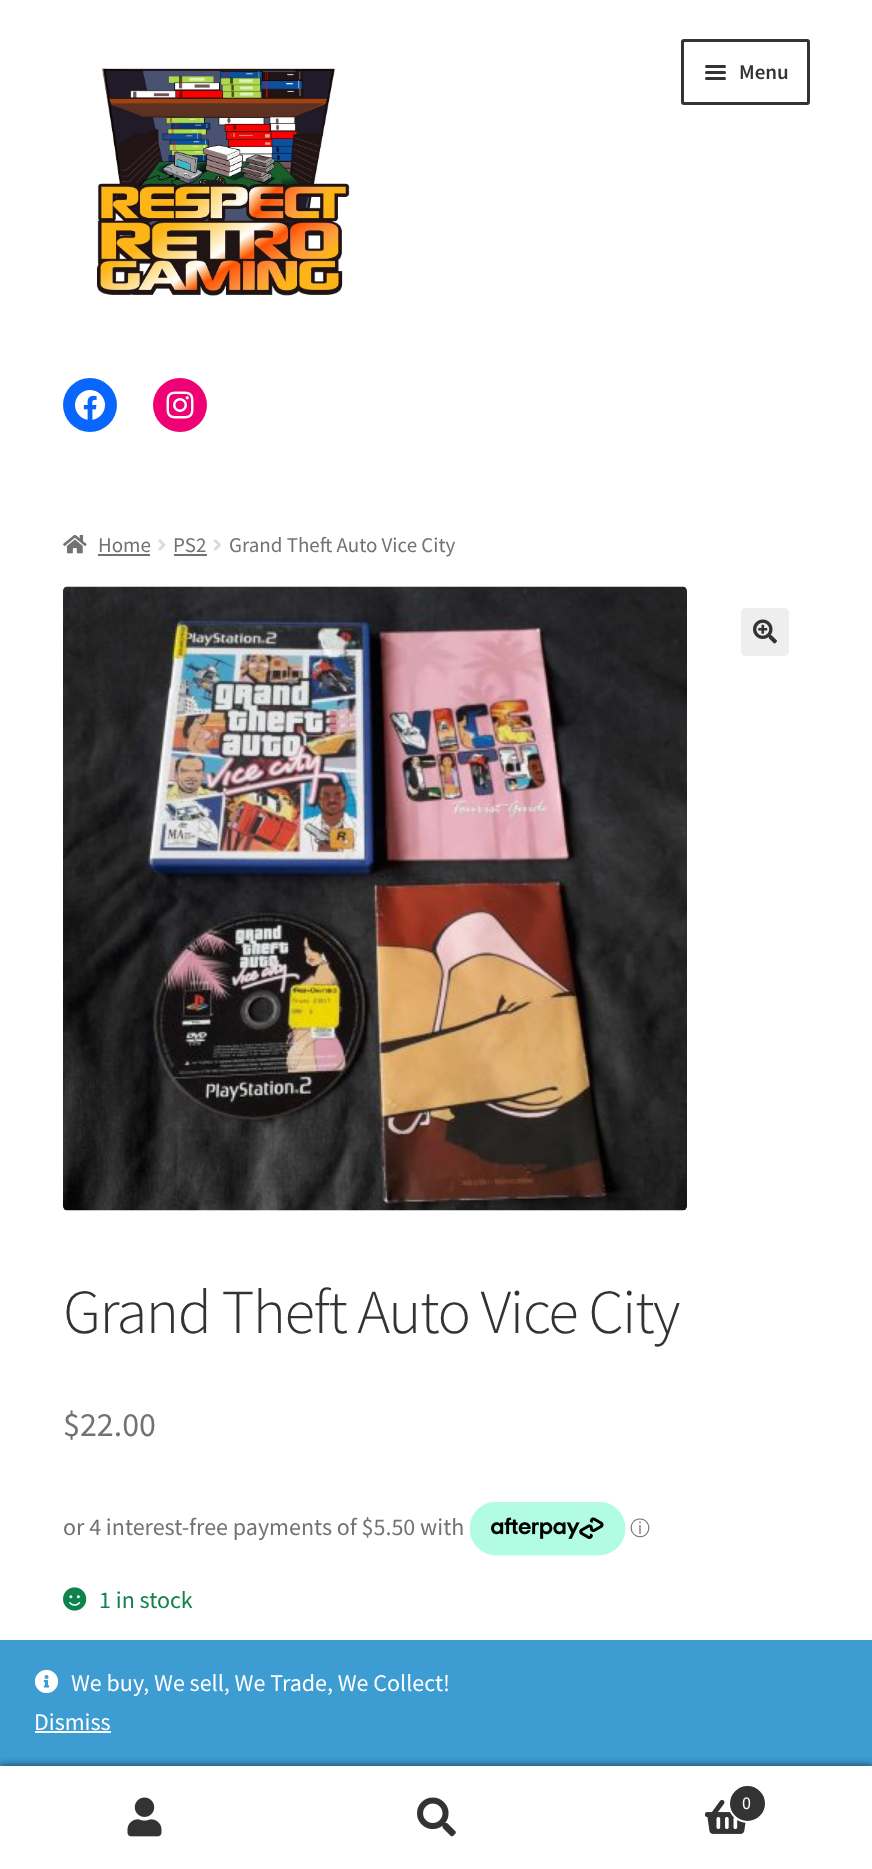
async function draw(canvas) {
  canvas.width = 872
  canvas.height = 1869
  const ctx = canvas.getContext('2d')
  ctx.miterLimit = 4
  ctx.fontKerning = 'normal'
  async function loadImage(src) {
    const img = new Image()
    img.src = src
    await img.decode()
    return img
  }

  ctx.fillStyle = '#fff'
  ctx.fillRect(0, 0, 872, 1869)
  ctx.drawImage(await loadImage('image0.png'), 96, 66, 254, 230)
  ctx.beginPath()
  ctx.roundRect(682.5, 40.5, 126, 63, 1.5)
  ctx.strokeStyle = '#333'
  ctx.lineWidth = 3
  ctx.stroke()
  ctx.fillStyle = '#333'
  ctx.beginPath()
  ctx.roundRect(705, 65, 21, 3, 1.5)
  ctx.fill()
  ctx.beginPath()
  ctx.roundRect(705, 71, 21, 3, 1.5)
  ctx.fill()
  ctx.font = '600 21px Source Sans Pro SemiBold'
  ctx.fillText('Menu', 739, 79)
  ctx.beginPath()
  ctx.roundRect(705, 77, 21, 3, 1.5)
  ctx.fill()
  ctx.fillStyle = '#0866ff'
  ctx.beginPath()
  ctx.arc(90, 405, 27, 0, 2 * Math.PI)
  ctx.fill()
  ctx.drawImage(await loadImage('image1.png'), 75, 390, 30, 30)
  ctx.fillStyle = '#f00075'
  ctx.beginPath()
  ctx.arc(180, 405, 27, 0, 2 * Math.PI)
  ctx.fill()
  ctx.drawImage(await loadImage('image2.png'), 166, 391, 28, 28)
  ctx.drawImage(await loadImage('image3.png'), 63, 534, 24, 20)
  ctx.font = '21px Source Sans Pro'
  ctx.fillStyle = '#727272'
  ctx.fillText('Home', 98, 552)
  ctx.fillRect(98, 554, 52, 2)
  ctx.drawImage(await loadImage('image4.png'), 158, 539, 8, 12)
  ctx.fillText('PS2', 173, 552)
  ctx.fillRect(174, 554, 33, 2)
  ctx.drawImage(await loadImage('image5.png'), 213, 539, 8, 12)
  ctx.fillText('Grand Theft Auto Vice City', 229, 552)
  ctx.drawImage(await loadImage('image6.png'), 63, 586, 624, 625)
  ctx.fillStyle = '#eee'
  ctx.beginPath()
  ctx.roundRect(741, 608, 48, 48, 5)
  ctx.fill()
  ctx.drawImage(await loadImage('image7.png'), 753, 619, 24, 25)
  ctx.letterSpacing = '-1.5px'
  ctx.font = '300 62.75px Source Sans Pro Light'
  ctx.fillStyle = '#333'
  ctx.fillText('Grand Theft Auto Vice City', 63, 1333)
  ctx.letterSpacing = '0px'
  ctx.font = '34px Source Sans Pro'
  ctx.fillStyle = '#727272'
  ctx.fillText('$22.00', 63, 1436)
  ctx.font = '24px Source Sans Pro'
  ctx.fillText('or 4 interest-free payments of $5.50 with', 63, 1535)
  ctx.drawImage(await loadImage('image8.png'), 470, 1502, 156, 54)
  ctx.font = '500 20px WenQuanYi Zen Hei'
  ctx.fillText('ⓘ', 630, 1535)
  ctx.drawImage(await loadImage('image9.png'), 63, 1587, 24, 24)
  ctx.font = '24px Source Sans Pro'
  ctx.fillStyle = '#0f834d'
  ctx.fillText('1 in stock', 99, 1608)
  ctx.fillStyle = '#3d9cd2'
  ctx.fillRect(0, 1640, 872, 126)
  ctx.fillStyle = '#000000b3'
  ctx.filter = 'blur(4.5px)'
  ctx.beginPath()
  ctx.rect(0, 1766, 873, 103)
  ctx.fill()
  ctx.filter = 'none'
  ctx.fillStyle = '#fff'
  ctx.fillRect(0, 1766, 872, 1)
  ctx.fillRect(0, 1767, 872, 102)
  ctx.drawImage(await loadImage('image10.png'), 127, 1797, 35, 40)
  ctx.drawImage(await loadImage('image11.png'), 417, 1797, 39, 40)
  ctx.drawImage(await loadImage('image12.png'), 705, 1799, 41, 35)
  ctx.fillStyle = '#333'
  ctx.beginPath()
  ctx.arc(747.5, 1803.5, 18.5, 0, 2 * Math.PI)
  ctx.fill()
  ctx.strokeStyle = '#fff'
  ctx.lineWidth = 2
  ctx.stroke()
  ctx.font = '18px Source Sans Pro'
  ctx.fillStyle = '#fff'
  ctx.fillText('0', 742, 1809)
  ctx.drawImage(await loadImage('image13.png'), 34, 1669, 25, 25)
  ctx.font = '24px Source Sans Pro'
  ctx.fillText('We buy, We sell, We Trade, We Collect!', 71, 1691)
  ctx.fillText('Dismiss', 34, 1730)
  ctx.fillRect(35, 1731, 76, 2)
}

draw(document.querySelector('canvas'))
